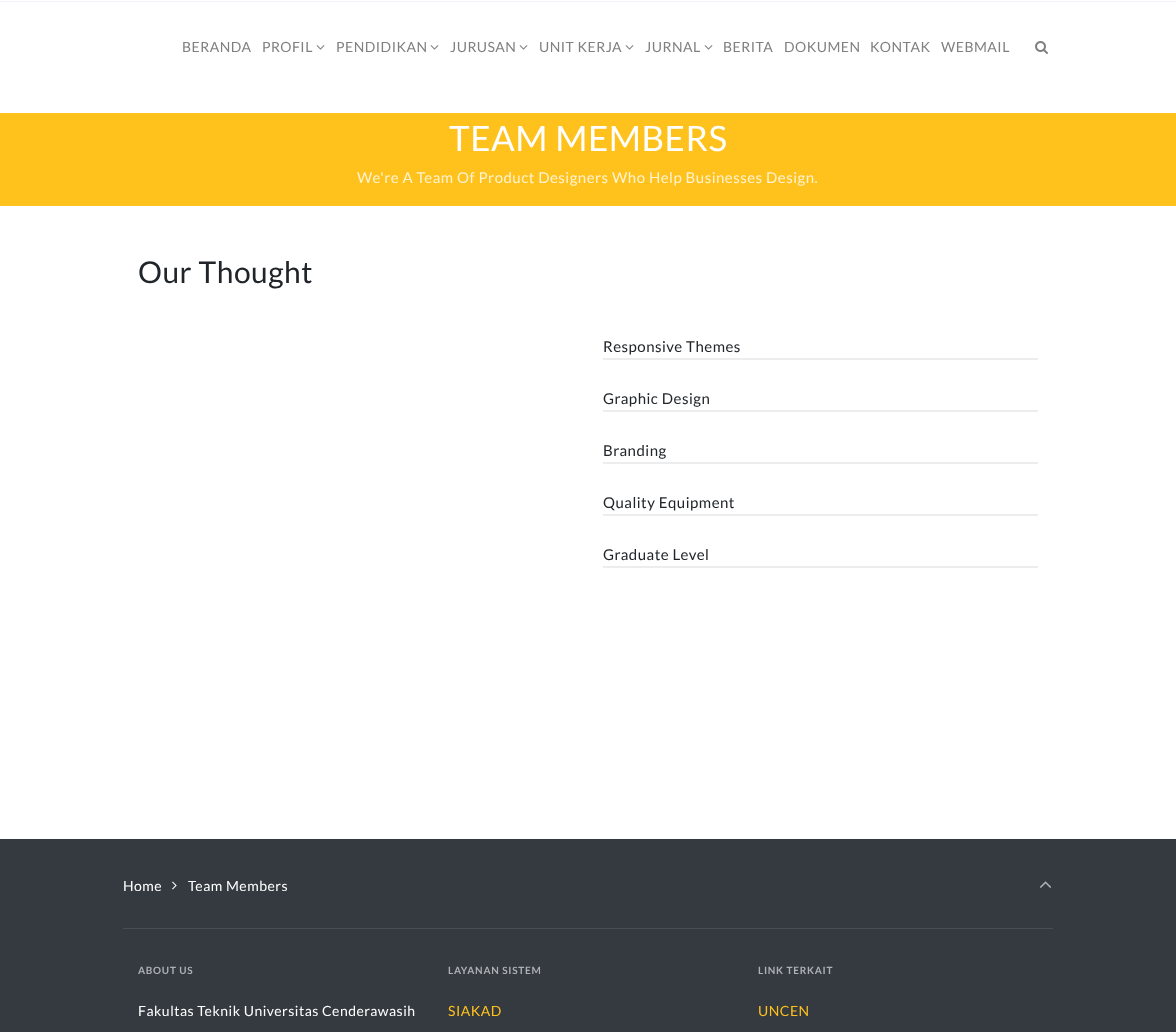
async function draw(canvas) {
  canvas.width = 1176
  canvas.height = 1032
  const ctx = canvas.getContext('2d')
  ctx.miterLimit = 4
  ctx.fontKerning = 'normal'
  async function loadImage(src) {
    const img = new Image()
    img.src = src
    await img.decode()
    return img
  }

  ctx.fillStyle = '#fff'
  ctx.fillRect(0, 0, 1176, 1032)
  ctx.fillStyle = '#f0f2f7'
  ctx.fillRect(0, 1, 1176, 1)
  ctx.letterSpacing = '0.5px'
  ctx.font = '14px Lato'
  ctx.fillStyle = '#808080'
  ctx.fillText('BERANDA', 182, 52)
  ctx.fillText('PROFIL', 262, 52)
  ctx.drawImage(await loadImage('image0.png'), 316, 45, 9, 5)
  ctx.fillText('PENDIDIKAN', 336, 52)
  ctx.drawImage(await loadImage('image0.png'), 430, 45, 9, 5)
  ctx.fillText('JURUSAN', 450, 52)
  ctx.drawImage(await loadImage('image0.png'), 519, 45, 9, 5)
  ctx.fillText('UNIT KERJA', 539, 52)
  ctx.drawImage(await loadImage('image0.png'), 625, 45, 9, 5)
  ctx.fillText('JURNAL', 645, 52)
  ctx.drawImage(await loadImage('image0.png'), 704, 45, 9, 5)
  ctx.fillText('BERITA', 723, 52)
  ctx.fillText('DOKUMEN', 784, 52)
  ctx.fillText('KONTAK', 870, 52)
  ctx.fillText('WEBMAIL', 941, 52)
  ctx.drawImage(await loadImage('image1.png'), 1035, 41, 13, 13)
  ctx.fillStyle = '#ffc11b'
  ctx.fillRect(0, 113, 1176, 93)
  ctx.font = '35px Lato'
  ctx.fillStyle = '#fff'
  ctx.fillText('TEAM MEMBERS', 449, 151)
  ctx.font = '15px Lato'
  ctx.fillStyle = '#fff3d1'
  ctx.fillText('We\'re A Team Of Product Designers Who Help Businesses Design.', 357, 183)
  ctx.font = '30px Lato'
  ctx.fillStyle = '#212529'
  ctx.fillText('Our Thought', 138, 283)
  ctx.font = '15px Lato'
  ctx.fillText('Responsive Themes', 603, 352)
  ctx.fillStyle = '#ebedef'
  ctx.fillRect(603, 358, 435, 2)
  ctx.fillStyle = '#212529'
  ctx.fillText('Graphic Design', 603, 404)
  ctx.fillStyle = '#ebedef'
  ctx.fillRect(603, 410, 435, 2)
  ctx.fillStyle = '#212529'
  ctx.fillText('Branding', 603, 456)
  ctx.fillStyle = '#ebedef'
  ctx.fillRect(603, 462, 435, 2)
  ctx.fillStyle = '#212529'
  ctx.fillText('Quality Equipment', 603, 508)
  ctx.fillStyle = '#ebedef'
  ctx.fillRect(603, 514, 435, 2)
  ctx.fillStyle = '#212529'
  ctx.fillText('Graduate Level', 603, 560)
  ctx.fillStyle = '#ebedef'
  ctx.fillRect(603, 566, 435, 2)
  ctx.fillStyle = '#343a40'
  ctx.fillRect(0, 839, 1176, 193)
  ctx.fillStyle = '#484e53'
  ctx.fillRect(123, 928, 930, 1)
  ctx.font = '14px Lato'
  ctx.fillStyle = '#fff'
  ctx.fillText('Home', 123, 891)
  ctx.drawImage(await loadImage('image2.png'), 172, 881, 5, 9)
  ctx.fillText('Team Members', 188, 891)
  ctx.drawImage(await loadImage('image3.png'), 1040, 881, 11, 7)
  ctx.letterSpacing = '0.75px'
  ctx.font = 'bold 10px Lato'
  ctx.fillStyle = '#aeb0b3'
  ctx.fillText('ABOUT US', 138, 974)
  ctx.letterSpacing = '0.5px'
  ctx.font = '14px Lato'
  ctx.fillStyle = '#fff'
  ctx.fillText('Fakultas Teknik Universitas Cenderawasih', 138, 1016)
  ctx.letterSpacing = '0.75px'
  ctx.font = 'bold 10px Lato'
  ctx.fillStyle = '#aeb0b3'
  ctx.fillText('LAYANAN SISTEM', 448, 974)
  ctx.letterSpacing = '0.5px'
  ctx.font = '14px Lato'
  ctx.fillStyle = '#ffc11b'
  ctx.fillText('SIAKAD', 448, 1016)
  ctx.letterSpacing = '0.75px'
  ctx.font = 'bold 10px Lato'
  ctx.fillStyle = '#aeb0b3'
  ctx.fillText('LINK TERKAIT', 758, 974)
  ctx.letterSpacing = '0.5px'
  ctx.font = '14px Lato'
  ctx.fillStyle = '#ffc11b'
  ctx.fillText('UNCEN', 758, 1016)
}

draw(document.querySelector('canvas'))
